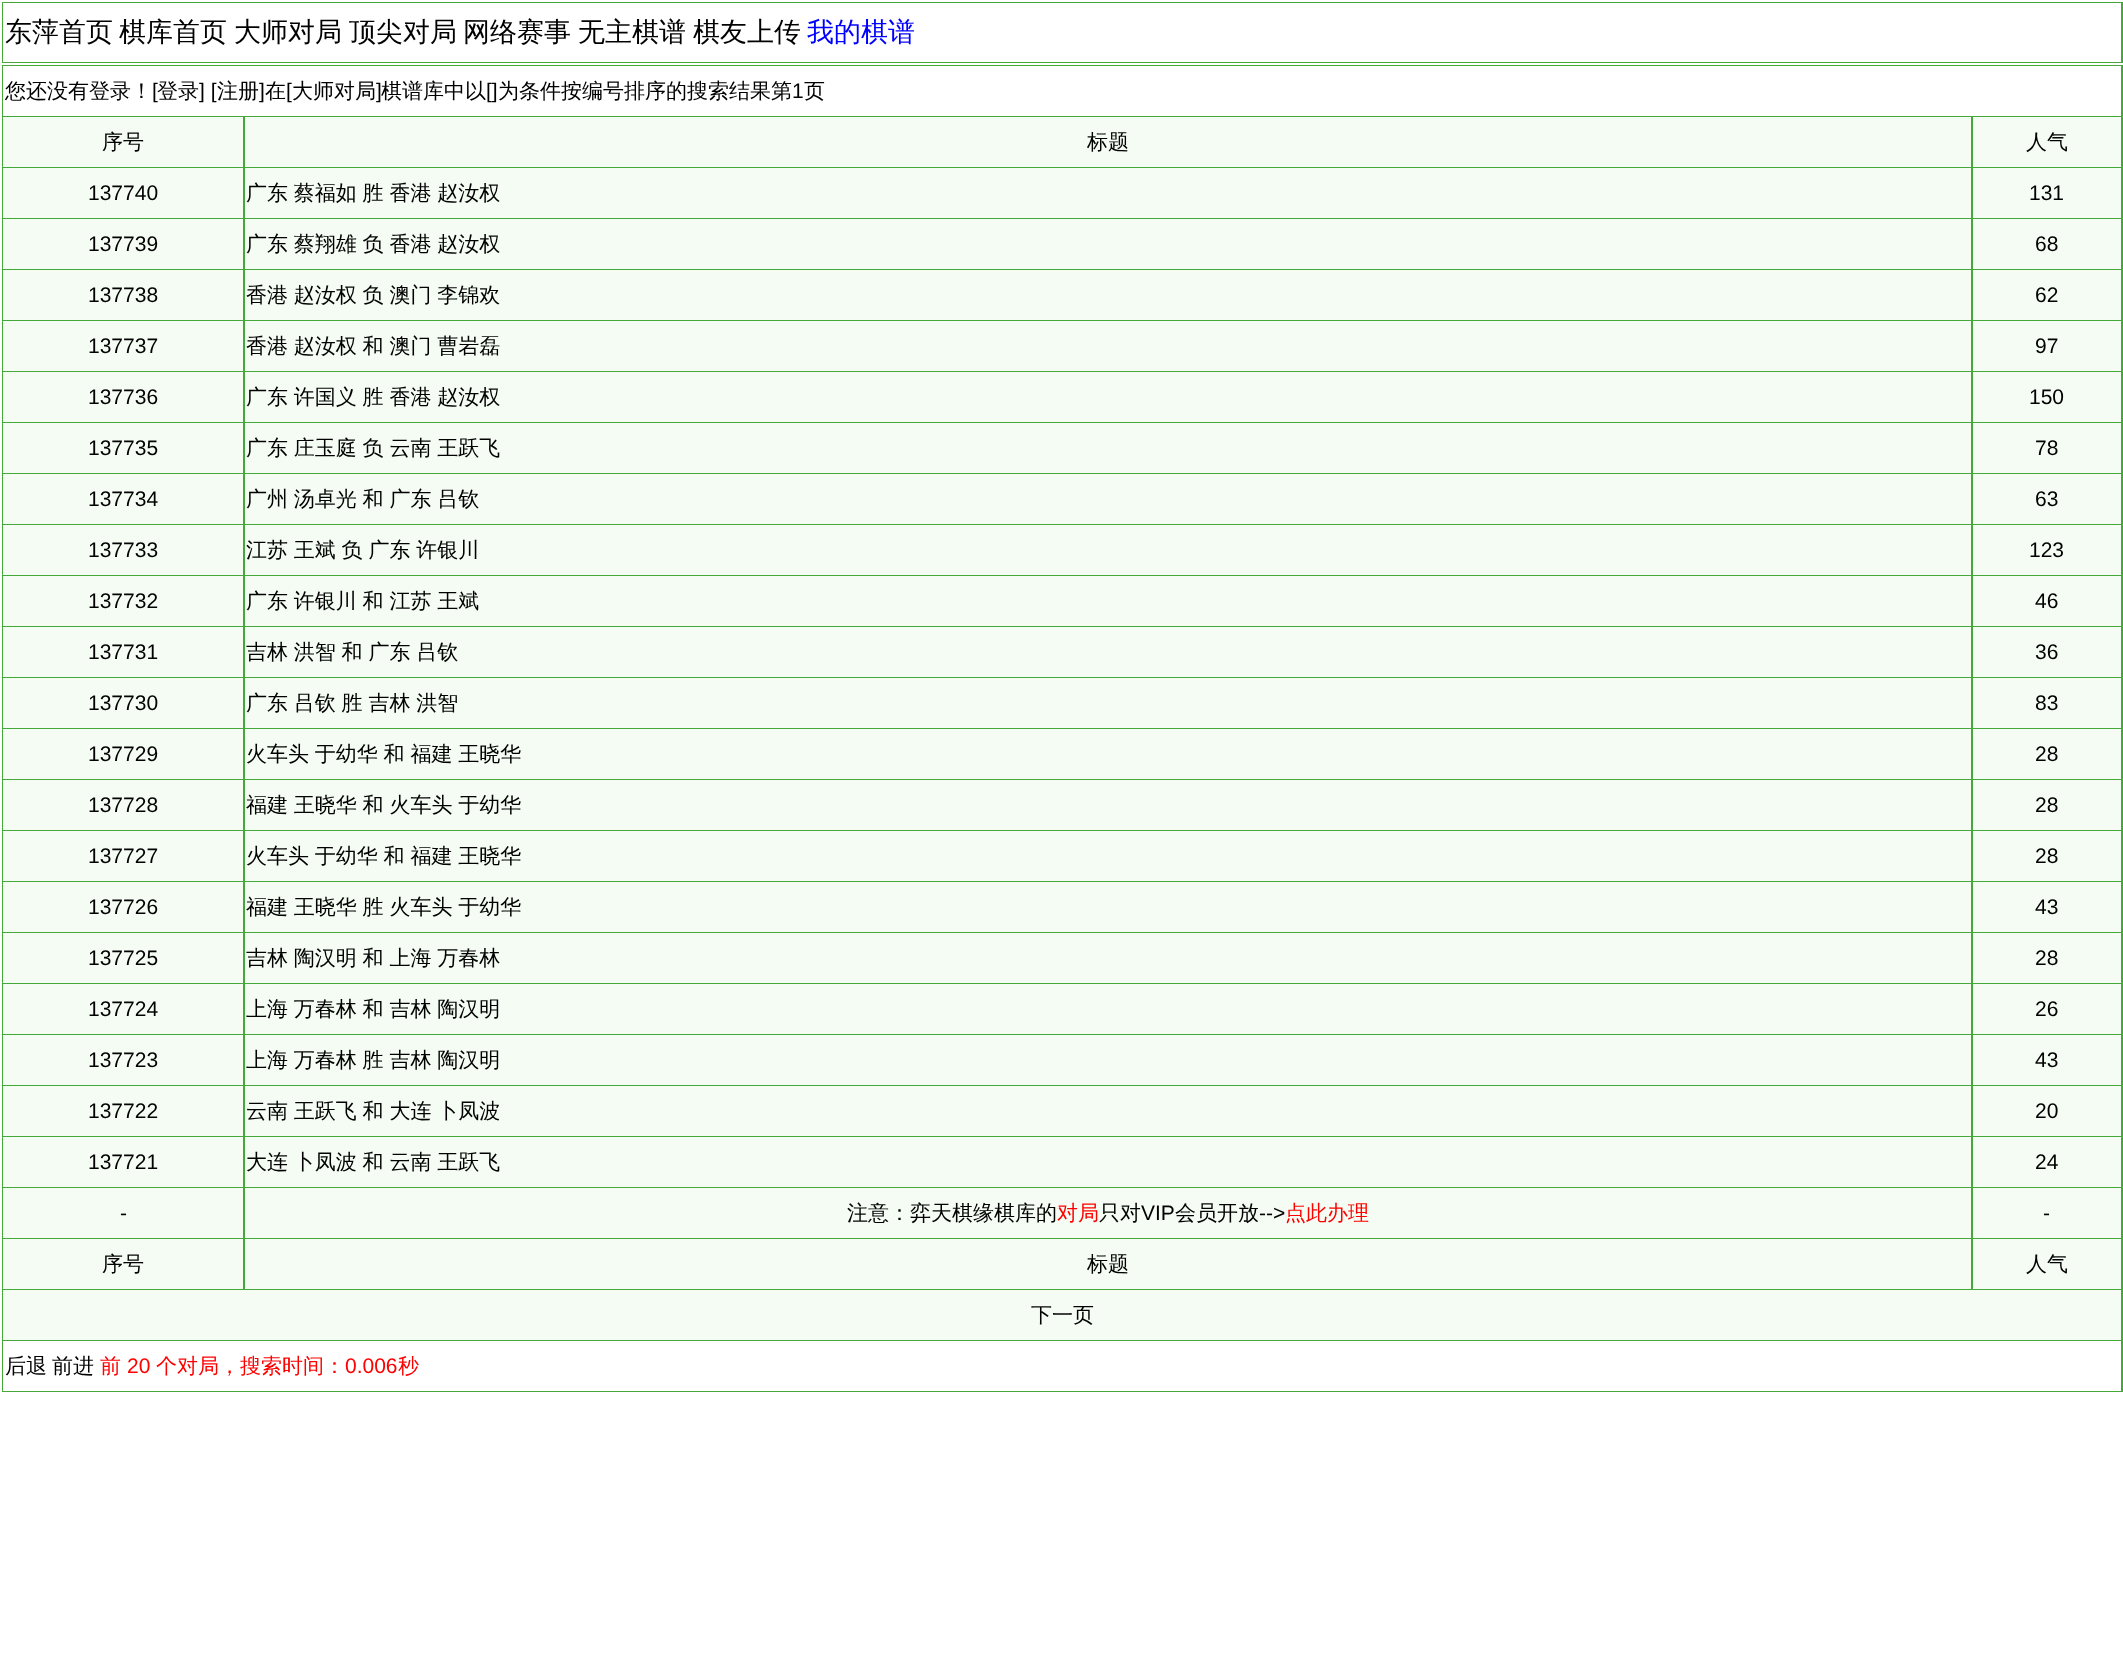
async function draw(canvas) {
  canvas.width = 2123
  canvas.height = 1658
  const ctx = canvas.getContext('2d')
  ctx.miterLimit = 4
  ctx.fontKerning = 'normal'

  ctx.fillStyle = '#fff'
  ctx.fillRect(0, 0, 2123, 1658)
  ctx.fillStyle = '#44a938'
  ctx.fillRect(2, 2, 2121, 61)
  ctx.fillStyle = '#fff'
  ctx.fillRect(3, 3, 2118, 59)
  ctx.font = '500 27px WenQuanYi Zen Hei'
  ctx.fillStyle = '#000'
  ctx.fillText('东萍首页', 5, 41)
  ctx.fillText('棋库首页', 119, 41)
  ctx.fillText('大师对局', 234, 41)
  ctx.fillText('顶尖对局', 349, 41)
  ctx.fillText('网络赛事', 463, 41)
  ctx.fillText('无主棋谱', 578, 41)
  ctx.fillText('棋友上传', 693, 41)
  ctx.fillStyle = '#00f'
  ctx.fillText('我的棋谱', 807, 41)
  ctx.fillStyle = '#44a938'
  ctx.fillRect(2, 65, 2121, 1327)
  ctx.fillStyle = '#fff'
  ctx.fillRect(3, 66, 2118, 50)
  ctx.font = '500 21px WenQuanYi Zen Hei'
  ctx.fillStyle = '#000'
  ctx.fillText('您还没有登录！', 5, 98)
  ctx.font = '21px Liberation Sans'
  ctx.fillText('[', 152, 98)
  ctx.font = '500 21px WenQuanYi Zen Hei'
  ctx.fillText('登录', 157, 98)
  ctx.font = '21px Liberation Sans'
  ctx.fillText('] [', 199, 98)
  ctx.font = '500 21px WenQuanYi Zen Hei'
  ctx.fillText('注册', 217, 98)
  ctx.font = '21px Liberation Sans'
  ctx.fillText(']', 259, 98)
  ctx.font = '500 21px WenQuanYi Zen Hei'
  ctx.fillText('在', 265, 98)
  ctx.font = '21px Liberation Sans'
  ctx.fillText('[', 286, 98)
  ctx.font = '500 21px WenQuanYi Zen Hei'
  ctx.fillText('大师对局', 292, 98)
  ctx.font = '21px Liberation Sans'
  ctx.fillText(']', 376, 98)
  ctx.font = '500 21px WenQuanYi Zen Hei'
  ctx.fillText('棋谱库中以', 381, 98)
  ctx.font = '21px Liberation Sans'
  ctx.fillText('[]', 486, 98)
  ctx.font = '500 21px WenQuanYi Zen Hei'
  ctx.fillText('为条件按编号排序的搜索结果第', 498, 98)
  ctx.font = '21px Liberation Sans'
  ctx.fillText('1', 792, 98)
  ctx.font = '500 21px WenQuanYi Zen Hei'
  ctx.fillText('页', 804, 98)
  ctx.fillStyle = '#f4fcf3'
  ctx.fillRect(3, 117, 240, 50)
  ctx.fillStyle = '#000'
  ctx.fillText('序号', 102, 149)
  ctx.fillStyle = '#f4fcf3'
  ctx.fillRect(245, 117, 1726, 50)
  ctx.fillStyle = '#000'
  ctx.fillText('标题', 1087, 149)
  ctx.fillStyle = '#f4fcf3'
  ctx.fillRect(1973, 117, 148, 50)
  ctx.fillStyle = '#000'
  ctx.fillText('人气', 2026, 149)
  ctx.fillStyle = '#f4fcf3'
  ctx.fillRect(3, 168, 240, 50)
  ctx.font = '21px Liberation Sans'
  ctx.fillStyle = '#000'
  ctx.fillText('137740', 88, 200)
  ctx.fillStyle = '#f4fcf3'
  ctx.fillRect(245, 168, 1726, 50)
  ctx.wordSpacing = '-0.5px'
  ctx.font = '500 21px WenQuanYi Zen Hei'
  ctx.fillStyle = '#000'
  ctx.fillText('广东 蔡福如 胜 香港 赵汝权', 246, 200)
  ctx.fillStyle = '#f4fcf3'
  ctx.fillRect(1973, 168, 148, 50)
  ctx.wordSpacing = '0px'
  ctx.font = '21px Liberation Sans'
  ctx.fillStyle = '#000'
  ctx.fillText('131', 2029, 200)
  ctx.fillStyle = '#f4fcf3'
  ctx.fillRect(3, 219, 240, 50)
  ctx.fillStyle = '#000'
  ctx.fillText('137739', 88, 251)
  ctx.fillStyle = '#f4fcf3'
  ctx.fillRect(245, 219, 1726, 50)
  ctx.wordSpacing = '-0.5px'
  ctx.font = '500 21px WenQuanYi Zen Hei'
  ctx.fillStyle = '#000'
  ctx.fillText('广东 蔡翔雄 负 香港 赵汝权', 246, 251)
  ctx.fillStyle = '#f4fcf3'
  ctx.fillRect(1973, 219, 148, 50)
  ctx.wordSpacing = '0px'
  ctx.font = '21px Liberation Sans'
  ctx.fillStyle = '#000'
  ctx.fillText('68', 2035, 251)
  ctx.fillStyle = '#f4fcf3'
  ctx.fillRect(3, 270, 240, 50)
  ctx.fillStyle = '#000'
  ctx.fillText('137738', 88, 302)
  ctx.fillStyle = '#f4fcf3'
  ctx.fillRect(245, 270, 1726, 50)
  ctx.wordSpacing = '-0.5px'
  ctx.font = '500 21px WenQuanYi Zen Hei'
  ctx.fillStyle = '#000'
  ctx.fillText('香港 赵汝权 负 澳门 李锦欢', 246, 302)
  ctx.fillStyle = '#f4fcf3'
  ctx.fillRect(1973, 270, 148, 50)
  ctx.wordSpacing = '0px'
  ctx.font = '21px Liberation Sans'
  ctx.fillStyle = '#000'
  ctx.fillText('62', 2035, 302)
  ctx.fillStyle = '#f4fcf3'
  ctx.fillRect(3, 321, 240, 50)
  ctx.fillStyle = '#000'
  ctx.fillText('137737', 88, 353)
  ctx.fillStyle = '#f4fcf3'
  ctx.fillRect(245, 321, 1726, 50)
  ctx.wordSpacing = '-0.5px'
  ctx.font = '500 21px WenQuanYi Zen Hei'
  ctx.fillStyle = '#000'
  ctx.fillText('香港 赵汝权 和 澳门 曹岩磊', 246, 353)
  ctx.fillStyle = '#f4fcf3'
  ctx.fillRect(1973, 321, 148, 50)
  ctx.wordSpacing = '0px'
  ctx.font = '21px Liberation Sans'
  ctx.fillStyle = '#000'
  ctx.fillText('97', 2035, 353)
  ctx.fillStyle = '#f4fcf3'
  ctx.fillRect(3, 372, 240, 50)
  ctx.fillStyle = '#000'
  ctx.fillText('137736', 88, 404)
  ctx.fillStyle = '#f4fcf3'
  ctx.fillRect(245, 372, 1726, 50)
  ctx.wordSpacing = '-0.5px'
  ctx.font = '500 21px WenQuanYi Zen Hei'
  ctx.fillStyle = '#000'
  ctx.fillText('广东 许国义 胜 香港 赵汝权', 246, 404)
  ctx.fillStyle = '#f4fcf3'
  ctx.fillRect(1973, 372, 148, 50)
  ctx.wordSpacing = '0px'
  ctx.font = '21px Liberation Sans'
  ctx.fillStyle = '#000'
  ctx.fillText('150', 2029, 404)
  ctx.fillStyle = '#f4fcf3'
  ctx.fillRect(3, 423, 240, 50)
  ctx.fillStyle = '#000'
  ctx.fillText('137735', 88, 455)
  ctx.fillStyle = '#f4fcf3'
  ctx.fillRect(245, 423, 1726, 50)
  ctx.wordSpacing = '-0.5px'
  ctx.font = '500 21px WenQuanYi Zen Hei'
  ctx.fillStyle = '#000'
  ctx.fillText('广东 庄玉庭 负 云南 王跃飞', 246, 455)
  ctx.fillStyle = '#f4fcf3'
  ctx.fillRect(1973, 423, 148, 50)
  ctx.wordSpacing = '0px'
  ctx.font = '21px Liberation Sans'
  ctx.fillStyle = '#000'
  ctx.fillText('78', 2035, 455)
  ctx.fillStyle = '#f4fcf3'
  ctx.fillRect(3, 474, 240, 50)
  ctx.fillStyle = '#000'
  ctx.fillText('137734', 88, 506)
  ctx.fillStyle = '#f4fcf3'
  ctx.fillRect(245, 474, 1726, 50)
  ctx.wordSpacing = '-0.5px'
  ctx.font = '500 21px WenQuanYi Zen Hei'
  ctx.fillStyle = '#000'
  ctx.fillText('广州 汤卓光 和 广东 吕钦', 246, 506)
  ctx.fillStyle = '#f4fcf3'
  ctx.fillRect(1973, 474, 148, 50)
  ctx.wordSpacing = '0px'
  ctx.font = '21px Liberation Sans'
  ctx.fillStyle = '#000'
  ctx.fillText('63', 2035, 506)
  ctx.fillStyle = '#f4fcf3'
  ctx.fillRect(3, 525, 240, 50)
  ctx.fillStyle = '#000'
  ctx.fillText('137733', 88, 557)
  ctx.fillStyle = '#f4fcf3'
  ctx.fillRect(245, 525, 1726, 50)
  ctx.wordSpacing = '-0.5px'
  ctx.font = '500 21px WenQuanYi Zen Hei'
  ctx.fillStyle = '#000'
  ctx.fillText('江苏 王斌 负 广东 许银川', 246, 557)
  ctx.fillStyle = '#f4fcf3'
  ctx.fillRect(1973, 525, 148, 50)
  ctx.wordSpacing = '0px'
  ctx.font = '21px Liberation Sans'
  ctx.fillStyle = '#000'
  ctx.fillText('123', 2029, 557)
  ctx.fillStyle = '#f4fcf3'
  ctx.fillRect(3, 576, 240, 50)
  ctx.fillStyle = '#000'
  ctx.fillText('137732', 88, 608)
  ctx.fillStyle = '#f4fcf3'
  ctx.fillRect(245, 576, 1726, 50)
  ctx.wordSpacing = '-0.5px'
  ctx.font = '500 21px WenQuanYi Zen Hei'
  ctx.fillStyle = '#000'
  ctx.fillText('广东 许银川 和 江苏 王斌', 246, 608)
  ctx.fillStyle = '#f4fcf3'
  ctx.fillRect(1973, 576, 148, 50)
  ctx.wordSpacing = '0px'
  ctx.font = '21px Liberation Sans'
  ctx.fillStyle = '#000'
  ctx.fillText('46', 2035, 608)
  ctx.fillStyle = '#f4fcf3'
  ctx.fillRect(3, 627, 240, 50)
  ctx.fillStyle = '#000'
  ctx.fillText('137731', 88, 659)
  ctx.fillStyle = '#f4fcf3'
  ctx.fillRect(245, 627, 1726, 50)
  ctx.wordSpacing = '-0.5px'
  ctx.font = '500 21px WenQuanYi Zen Hei'
  ctx.fillStyle = '#000'
  ctx.fillText('吉林 洪智 和 广东 吕钦', 246, 659)
  ctx.fillStyle = '#f4fcf3'
  ctx.fillRect(1973, 627, 148, 50)
  ctx.wordSpacing = '0px'
  ctx.font = '21px Liberation Sans'
  ctx.fillStyle = '#000'
  ctx.fillText('36', 2035, 659)
  ctx.fillStyle = '#f4fcf3'
  ctx.fillRect(3, 678, 240, 50)
  ctx.fillStyle = '#000'
  ctx.fillText('137730', 88, 710)
  ctx.fillStyle = '#f4fcf3'
  ctx.fillRect(245, 678, 1726, 50)
  ctx.wordSpacing = '-0.5px'
  ctx.font = '500 21px WenQuanYi Zen Hei'
  ctx.fillStyle = '#000'
  ctx.fillText('广东 吕钦 胜 吉林 洪智', 246, 710)
  ctx.fillStyle = '#f4fcf3'
  ctx.fillRect(1973, 678, 148, 50)
  ctx.wordSpacing = '0px'
  ctx.font = '21px Liberation Sans'
  ctx.fillStyle = '#000'
  ctx.fillText('83', 2035, 710)
  ctx.fillStyle = '#f4fcf3'
  ctx.fillRect(3, 729, 240, 50)
  ctx.fillStyle = '#000'
  ctx.fillText('137729', 88, 761)
  ctx.fillStyle = '#f4fcf3'
  ctx.fillRect(245, 729, 1726, 50)
  ctx.wordSpacing = '-0.5px'
  ctx.font = '500 21px WenQuanYi Zen Hei'
  ctx.fillStyle = '#000'
  ctx.fillText('火车头 于幼华 和 福建 王晓华', 246, 761)
  ctx.fillStyle = '#f4fcf3'
  ctx.fillRect(1973, 729, 148, 50)
  ctx.wordSpacing = '0px'
  ctx.font = '21px Liberation Sans'
  ctx.fillStyle = '#000'
  ctx.fillText('28', 2035, 761)
  ctx.fillStyle = '#f4fcf3'
  ctx.fillRect(3, 780, 240, 50)
  ctx.fillStyle = '#000'
  ctx.fillText('137728', 88, 812)
  ctx.fillStyle = '#f4fcf3'
  ctx.fillRect(245, 780, 1726, 50)
  ctx.wordSpacing = '-0.5px'
  ctx.font = '500 21px WenQuanYi Zen Hei'
  ctx.fillStyle = '#000'
  ctx.fillText('福建 王晓华 和 火车头 于幼华', 246, 812)
  ctx.fillStyle = '#f4fcf3'
  ctx.fillRect(1973, 780, 148, 50)
  ctx.wordSpacing = '0px'
  ctx.font = '21px Liberation Sans'
  ctx.fillStyle = '#000'
  ctx.fillText('28', 2035, 812)
  ctx.fillStyle = '#f4fcf3'
  ctx.fillRect(3, 831, 240, 50)
  ctx.fillStyle = '#000'
  ctx.fillText('137727', 88, 863)
  ctx.fillStyle = '#f4fcf3'
  ctx.fillRect(245, 831, 1726, 50)
  ctx.wordSpacing = '-0.5px'
  ctx.font = '500 21px WenQuanYi Zen Hei'
  ctx.fillStyle = '#000'
  ctx.fillText('火车头 于幼华 和 福建 王晓华', 246, 863)
  ctx.fillStyle = '#f4fcf3'
  ctx.fillRect(1973, 831, 148, 50)
  ctx.wordSpacing = '0px'
  ctx.font = '21px Liberation Sans'
  ctx.fillStyle = '#000'
  ctx.fillText('28', 2035, 863)
  ctx.fillStyle = '#f4fcf3'
  ctx.fillRect(3, 882, 240, 50)
  ctx.fillStyle = '#000'
  ctx.fillText('137726', 88, 914)
  ctx.fillStyle = '#f4fcf3'
  ctx.fillRect(245, 882, 1726, 50)
  ctx.wordSpacing = '-0.5px'
  ctx.font = '500 21px WenQuanYi Zen Hei'
  ctx.fillStyle = '#000'
  ctx.fillText('福建 王晓华 胜 火车头 于幼华', 246, 914)
  ctx.fillStyle = '#f4fcf3'
  ctx.fillRect(1973, 882, 148, 50)
  ctx.wordSpacing = '0px'
  ctx.font = '21px Liberation Sans'
  ctx.fillStyle = '#000'
  ctx.fillText('43', 2035, 914)
  ctx.fillStyle = '#f4fcf3'
  ctx.fillRect(3, 933, 240, 50)
  ctx.fillStyle = '#000'
  ctx.fillText('137725', 88, 965)
  ctx.fillStyle = '#f4fcf3'
  ctx.fillRect(245, 933, 1726, 50)
  ctx.wordSpacing = '-0.5px'
  ctx.font = '500 21px WenQuanYi Zen Hei'
  ctx.fillStyle = '#000'
  ctx.fillText('吉林 陶汉明 和 上海 万春林', 246, 965)
  ctx.fillStyle = '#f4fcf3'
  ctx.fillRect(1973, 933, 148, 50)
  ctx.wordSpacing = '0px'
  ctx.font = '21px Liberation Sans'
  ctx.fillStyle = '#000'
  ctx.fillText('28', 2035, 965)
  ctx.fillStyle = '#f4fcf3'
  ctx.fillRect(3, 984, 240, 50)
  ctx.fillStyle = '#000'
  ctx.fillText('137724', 88, 1016)
  ctx.fillStyle = '#f4fcf3'
  ctx.fillRect(245, 984, 1726, 50)
  ctx.wordSpacing = '-0.5px'
  ctx.font = '500 21px WenQuanYi Zen Hei'
  ctx.fillStyle = '#000'
  ctx.fillText('上海 万春林 和 吉林 陶汉明', 246, 1016)
  ctx.fillStyle = '#f4fcf3'
  ctx.fillRect(1973, 984, 148, 50)
  ctx.wordSpacing = '0px'
  ctx.font = '21px Liberation Sans'
  ctx.fillStyle = '#000'
  ctx.fillText('26', 2035, 1016)
  ctx.fillStyle = '#f4fcf3'
  ctx.fillRect(3, 1035, 240, 50)
  ctx.fillStyle = '#000'
  ctx.fillText('137723', 88, 1067)
  ctx.fillStyle = '#f4fcf3'
  ctx.fillRect(245, 1035, 1726, 50)
  ctx.wordSpacing = '-0.5px'
  ctx.font = '500 21px WenQuanYi Zen Hei'
  ctx.fillStyle = '#000'
  ctx.fillText('上海 万春林 胜 吉林 陶汉明', 246, 1067)
  ctx.fillStyle = '#f4fcf3'
  ctx.fillRect(1973, 1035, 148, 50)
  ctx.wordSpacing = '0px'
  ctx.font = '21px Liberation Sans'
  ctx.fillStyle = '#000'
  ctx.fillText('43', 2035, 1067)
  ctx.fillStyle = '#f4fcf3'
  ctx.fillRect(3, 1086, 240, 50)
  ctx.fillStyle = '#000'
  ctx.fillText('137722', 88, 1118)
  ctx.fillStyle = '#f4fcf3'
  ctx.fillRect(245, 1086, 1726, 50)
  ctx.wordSpacing = '-0.5px'
  ctx.font = '500 21px WenQuanYi Zen Hei'
  ctx.fillStyle = '#000'
  ctx.fillText('云南 王跃飞 和 大连 卜凤波', 246, 1118)
  ctx.fillStyle = '#f4fcf3'
  ctx.fillRect(1973, 1086, 148, 50)
  ctx.wordSpacing = '0px'
  ctx.font = '21px Liberation Sans'
  ctx.fillStyle = '#000'
  ctx.fillText('20', 2035, 1118)
  ctx.fillStyle = '#f4fcf3'
  ctx.fillRect(3, 1137, 240, 50)
  ctx.fillStyle = '#000'
  ctx.fillText('137721', 88, 1169)
  ctx.fillStyle = '#f4fcf3'
  ctx.fillRect(245, 1137, 1726, 50)
  ctx.wordSpacing = '-0.5px'
  ctx.font = '500 21px WenQuanYi Zen Hei'
  ctx.fillStyle = '#000'
  ctx.fillText('大连 卜凤波 和 云南 王跃飞', 246, 1169)
  ctx.fillStyle = '#f4fcf3'
  ctx.fillRect(1973, 1137, 148, 50)
  ctx.wordSpacing = '0px'
  ctx.font = '21px Liberation Sans'
  ctx.fillStyle = '#000'
  ctx.fillText('24', 2035, 1169)
  ctx.fillStyle = '#f4fcf3'
  ctx.fillRect(3, 1188, 240, 50)
  ctx.fillStyle = '#000'
  ctx.fillText('-', 120, 1220)
  ctx.fillStyle = '#f4fcf3'
  ctx.fillRect(245, 1188, 1726, 50)
  ctx.font = '500 21px WenQuanYi Zen Hei'
  ctx.fillStyle = '#000'
  ctx.fillText('注意：弈天棋缘棋库的', 847, 1220)
  ctx.fillStyle = '#f00'
  ctx.fillText('对局', 1057, 1220)
  ctx.fillStyle = '#000'
  ctx.fillText('只对', 1099, 1220)
  ctx.font = '21px Liberation Sans'
  ctx.fillText('VIP', 1141, 1220)
  ctx.font = '500 21px WenQuanYi Zen Hei'
  ctx.fillText('会员开放', 1175, 1220)
  ctx.font = '21px Liberation Sans'
  ctx.fillText('-->', 1259, 1220)
  ctx.font = '500 21px WenQuanYi Zen Hei'
  ctx.fillStyle = '#f00'
  ctx.fillText('点此办理', 1285, 1220)
  ctx.fillStyle = '#f4fcf3'
  ctx.fillRect(1973, 1188, 148, 50)
  ctx.font = '21px Liberation Sans'
  ctx.fillStyle = '#000'
  ctx.fillText('-', 2043, 1220)
  ctx.fillStyle = '#f4fcf3'
  ctx.fillRect(3, 1239, 240, 50)
  ctx.font = '500 21px WenQuanYi Zen Hei'
  ctx.fillStyle = '#000'
  ctx.fillText('序号', 102, 1271)
  ctx.fillStyle = '#f4fcf3'
  ctx.fillRect(245, 1239, 1726, 50)
  ctx.fillStyle = '#000'
  ctx.fillText('标题', 1087, 1271)
  ctx.fillStyle = '#f4fcf3'
  ctx.fillRect(1973, 1239, 148, 50)
  ctx.fillStyle = '#000'
  ctx.fillText('人气', 2026, 1271)
  ctx.fillStyle = '#f4fcf3'
  ctx.fillRect(3, 1290, 2118, 50)
  ctx.fillStyle = '#000'
  ctx.fillText('下一页', 1031, 1322)
  ctx.fillStyle = '#fff'
  ctx.fillRect(3, 1341, 2118, 50)
  ctx.fillStyle = '#000'
  ctx.fillText('后退', 5, 1373)
  ctx.fillText('前进', 52, 1373)
  ctx.fillStyle = '#f00'
  ctx.fillText('前', 100, 1373)
  ctx.font = '21px Liberation Sans'
  ctx.fillText('20', 127, 1373)
  ctx.font = '500 21px WenQuanYi Zen Hei'
  ctx.fillText('个对局，搜索时间：', 156, 1373)
  ctx.font = '21px Liberation Sans'
  ctx.fillText('0.006', 345, 1373)
  ctx.font = '500 21px WenQuanYi Zen Hei'
  ctx.fillText('秒', 398, 1373)
}

draw(document.querySelector('canvas'))
